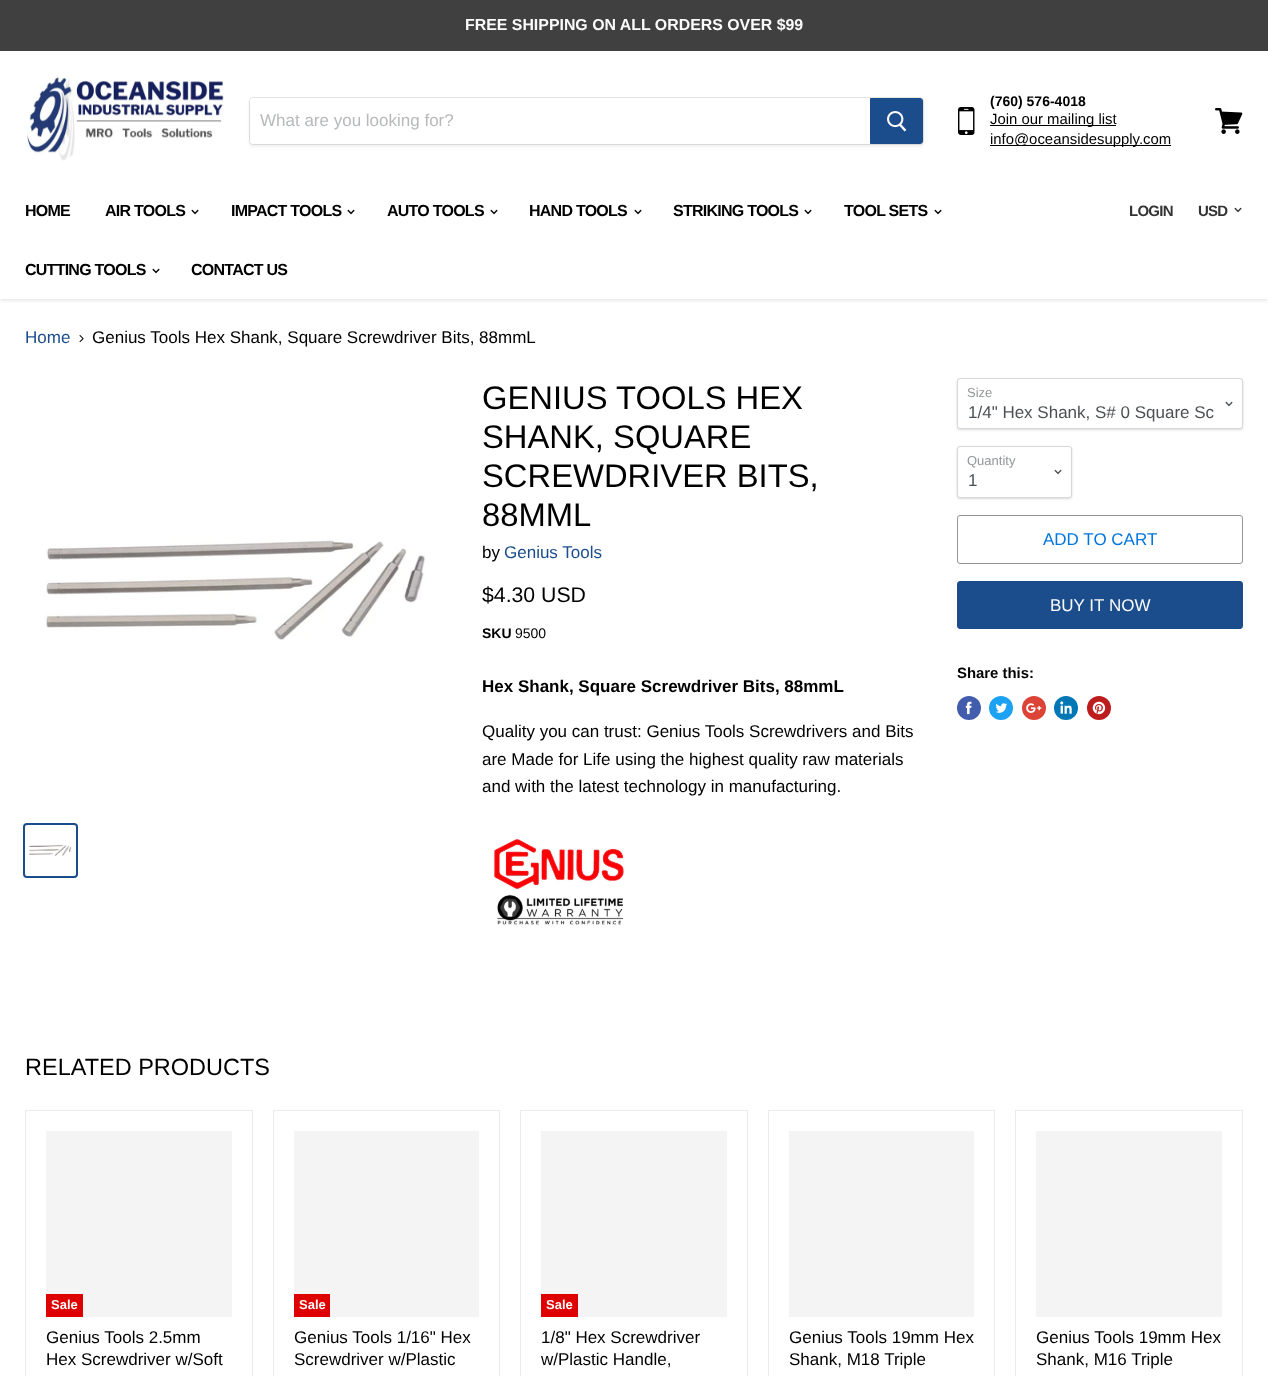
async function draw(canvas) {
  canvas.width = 1268
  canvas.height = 1376
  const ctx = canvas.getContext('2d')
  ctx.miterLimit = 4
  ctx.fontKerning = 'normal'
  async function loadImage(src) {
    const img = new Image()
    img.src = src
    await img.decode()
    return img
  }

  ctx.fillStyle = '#fff'
  ctx.fillRect(0, 0, 1268, 1376)
  ctx.save()
  ctx.beginPath()
  ctx.rect(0, 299, 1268, 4)
  ctx.clip()
  ctx.fillStyle = '#7f7f7f40'
  ctx.filter = 'blur(2px)'
  ctx.beginPath()
  ctx.rect(0, 52, 1268, 248)
  ctx.fill()
  ctx.filter = 'none'
  ctx.restore()
  ctx.fillStyle = '#404040'
  ctx.fillRect(0, 0, 1268, 51)
  ctx.font = 'bold 15.9px Liberation Sans'
  ctx.fillStyle = '#fafafa'
  ctx.fillText('FREE SHIPPING ON ALL ORDERS OVER $99', 465, 30)
  ctx.drawImage(await loadImage('image0.png'), 27, 77, 197, 84)
  ctx.fillStyle = '#7f7f7f1c'
  ctx.filter = 'blur(1.5px)'
  ctx.beginPath()
  ctx.roundRect(249, 99, 675, 48, 4)
  ctx.fill()
  ctx.filter = 'none'
  ctx.beginPath()
  ctx.roundRect(249.5, 97.5, 674, 47, 3.5)
  ctx.strokeStyle = '#7f7f7f33'
  ctx.stroke()
  ctx.fillStyle = '#fff'
  ctx.beginPath()
  ctx.roundRect(250, 98, 620, 46, [3, 0, 0, 3])
  ctx.fill()
  ctx.font = '17px Liberation Sans'
  ctx.fillStyle = '#b7b9bb'
  ctx.fillText('What are you looking for?', 260, 126)
  ctx.fillStyle = '#1b4d8d'
  ctx.beginPath()
  ctx.roundRect(870.5, 98.5, 52, 45, [0, 2.5, 2.5, 0])
  ctx.fill()
  ctx.strokeStyle = '#1b4d8d'
  ctx.stroke()
  ctx.drawImage(await loadImage('image1.png'), 887, 111, 20, 21)
  ctx.drawImage(await loadImage('image2.png'), 958, 107, 17, 28)
  ctx.font = 'bold 14px Liberation Sans'
  ctx.fillStyle = '#000'
  ctx.fillText('(760) 576-4018', 990, 106)
  ctx.fillRect(990, 125, 126, 1)
  ctx.font = '14.9px Liberation Sans'
  ctx.fillText('Join our mailing list', 990, 124)
  ctx.fillRect(990, 145, 181, 1)
  ctx.fillText('info@oceansidesupply.com', 990, 144)
  ctx.drawImage(await loadImage('image3.png'), 1215, 108, 28, 26)
  ctx.letterSpacing = '-0.75px'
  ctx.font = 'bold 16px Liberation Sans'
  ctx.fillText('HOME', 25, 216)
  ctx.fillText('AIR TOOLS', 105, 216)
  ctx.drawImage(await loadImage('image4.png'), 191, 209, 8, 6)
  ctx.fillText('IMPACT TOOLS', 231, 216)
  ctx.drawImage(await loadImage('image4.png'), 347, 209, 8, 6)
  ctx.fillText('AUTO TOOLS', 387, 216)
  ctx.drawImage(await loadImage('image4.png'), 490, 209, 8, 6)
  ctx.fillText('HAND TOOLS', 529, 216)
  ctx.drawImage(await loadImage('image4.png'), 634, 209, 8, 6)
  ctx.fillText('STRIKING TOOLS', 673, 216)
  ctx.drawImage(await loadImage('image4.png'), 804, 209, 8, 6)
  ctx.fillText('TOOL SETS', 844, 216)
  ctx.drawImage(await loadImage('image4.png'), 934, 209, 8, 6)
  ctx.fillText('CUTTING TOOLS', 25, 275)
  ctx.drawImage(await loadImage('image4.png'), 152, 268, 8, 6)
  ctx.fillText('CONTACT US', 191, 275)
  ctx.font = 'bold 15px Liberation Sans'
  ctx.fillStyle = '#333'
  ctx.fillText('LOGIN', 1129, 216)
  ctx.fillText('USD', 1198, 216)
  ctx.drawImage(await loadImage('image5.png'), 1234, 207, 8, 6)
  ctx.letterSpacing = '0px'
  ctx.font = '17px Liberation Sans'
  ctx.fillStyle = '#1b4d8d'
  ctx.fillText('Home', 25, 343)
  ctx.drawImage(await loadImage('image6.png'), 79, 335, 5, 7)
  ctx.fillStyle = '#000'
  ctx.fillText('Genius Tools Hex Shank, Square Screwdriver Bits, 88mmL', 92, 343)
  ctx.drawImage(await loadImage('image7.png'), 45, 540, 380, 100)
  ctx.beginPath()
  ctx.roundRect(24, 824, 53, 53, 3)
  ctx.lineWidth = 2
  ctx.stroke()
  ctx.drawImage(await loadImage('image8.png'), 29, 845, 43, 11)
  ctx.font = '32.75px Liberation Sans'
  ctx.fillText('GENIUS TOOLS HEX', 482, 409)
  ctx.fillText('SHANK, SQUARE', 482, 448)
  ctx.fillText('SCREWDRIVER BITS,', 482, 487)
  ctx.fillText('88MML', 482, 526)
  ctx.font = '17px Liberation Sans'
  ctx.fillText('by', 482, 558)
  ctx.fillStyle = '#1b4d8d'
  ctx.fillText('Genius Tools', 504, 558)
  ctx.font = '21.25px Liberation Sans'
  ctx.fillStyle = '#000'
  ctx.fillText('$4.30 USD', 482, 602)
  ctx.font = 'bold 14px Liberation Sans'
  ctx.fillText('SKU', 482, 638)
  ctx.font = '14px Liberation Sans'
  ctx.fillText('9500', 515, 638)
  ctx.font = 'bold 17px Liberation Sans'
  ctx.fillText('Hex Shank, Square Screwdriver Bits, 88mmL', 482, 692)
  ctx.font = '17px Liberation Sans'
  ctx.fillText('Quality you can trust: Genius Tools Screwdrivers and Bits', 482, 737)
  ctx.fillText('are Made for Life using the highest quality raw materials', 482, 765)
  ctx.fillText('and with the latest technology in manufacturing.', 482, 792)
  ctx.drawImage(await loadImage('image9.png'), 492, 839, 133, 86)
  ctx.fillStyle = '#00000026'
  ctx.filter = 'blur(1px)'
  ctx.beginPath()
  ctx.roundRect(957, 379, 286, 51, 3)
  ctx.fill()
  ctx.filter = 'none'
  ctx.fillStyle = '#fff'
  ctx.beginPath()
  ctx.roundRect(957.5, 378.5, 285, 50, 2.5)
  ctx.fill()
  ctx.strokeStyle = '#d8d8d8'
  ctx.lineWidth = 1
  ctx.stroke()
  ctx.font = '13px Liberation Sans'
  ctx.fillStyle = '#939698'
  ctx.fillText('Size', 967, 397)
  ctx.drawImage(await loadImage('image10.png'), 1225, 401, 8, 6)
  ctx.font = '17px Liberation Sans'
  ctx.fillStyle = '#4c5154'
  ctx.fillText('1/4" Hex Shank, S# 0 Square Sc', 968, 418)
  ctx.fillStyle = '#00000026'
  ctx.filter = 'blur(1px)'
  ctx.beginPath()
  ctx.roundRect(957, 447, 115, 52, 3)
  ctx.fill()
  ctx.filter = 'none'
  ctx.fillStyle = '#fff'
  ctx.beginPath()
  ctx.roundRect(957.5, 446.5, 114, 51, 2.5)
  ctx.fill()
  ctx.stroke()
  ctx.font = '13px Liberation Sans'
  ctx.fillStyle = '#939698'
  ctx.fillText('Quantity', 967, 465)
  ctx.drawImage(await loadImage('image10.png'), 1054, 469, 8, 6)
  ctx.font = '17px Liberation Sans'
  ctx.fillStyle = '#4c5154'
  ctx.fillText('1', 968, 486)
  ctx.beginPath()
  ctx.roundRect(957.5, 515.5, 285, 48, 2.5)
  ctx.strokeStyle = '#949494'
  ctx.stroke()
  ctx.fillStyle = '#0076de'
  ctx.fillText('ADD TO CART', 1043, 545)
  ctx.fillStyle = '#1b4d8d'
  ctx.beginPath()
  ctx.roundRect(957.5, 581.5, 285, 47, 2.5)
  ctx.fill()
  ctx.strokeStyle = '#1b4d8d'
  ctx.stroke()
  ctx.fillStyle = '#fafafa'
  ctx.fillText('BUY IT NOW', 1050, 611)
  ctx.font = 'bold 14.9px Liberation Sans'
  ctx.fillStyle = '#000'
  ctx.fillText('Share this:', 957, 678)
  ctx.fillStyle = '#425dab'
  ctx.beginPath()
  ctx.arc(969, 708, 12, 0, 2 * Math.PI)
  ctx.fill()
  ctx.drawImage(await loadImage('image11.png'), 965, 701, 7, 14)
  ctx.fillStyle = '#1da1f2'
  ctx.beginPath()
  ctx.arc(1001, 708, 12, 0, 2 * Math.PI)
  ctx.fill()
  ctx.drawImage(await loadImage('image12.png'), 995, 703, 13, 10)
  ctx.fillStyle = '#db4437'
  ctx.beginPath()
  ctx.arc(1034, 708, 12, 0, 2 * Math.PI)
  ctx.fill()
  ctx.drawImage(await loadImage('image13.png'), 1026, 703, 16, 10)
  ctx.fillStyle = '#0077b5'
  ctx.beginPath()
  ctx.arc(1066, 708, 12, 0, 2 * Math.PI)
  ctx.fill()
  ctx.drawImage(await loadImage('image14.png'), 1060, 701, 12, 13)
  ctx.fillStyle = '#bd1c1c'
  ctx.beginPath()
  ctx.arc(1099, 708, 12, 0, 2 * Math.PI)
  ctx.fill()
  ctx.drawImage(await loadImage('image15.png'), 1092, 701, 14, 14)
  ctx.font = '23.5px Liberation Sans'
  ctx.fillStyle = '#000'
  ctx.fillText('RELATED PRODUCTS', 25, 1075)
  ctx.strokeStyle = '#ebebeb'
  ctx.strokeRect(25.5, 1110.5, 227, 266)
  ctx.fillStyle = '#f4f4f4'
  ctx.fillRect(46, 1131, 186, 186)
  ctx.fillStyle = '#de0101'
  ctx.fillRect(46, 1294, 37, 23)
  ctx.font = 'bold 13px Liberation Sans'
  ctx.fillStyle = '#fafafa'
  ctx.fillText('Sale', 51, 1309)
  ctx.font = '17px Liberation Sans'
  ctx.fillStyle = '#000'
  ctx.fillText('Genius Tools 2.5mm', 46, 1343)
  ctx.fillText('Hex Screwdriver w/Soft', 46, 1365)
  ctx.strokeRect(273.5, 1110.5, 226, 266)
  ctx.fillStyle = '#f4f4f4'
  ctx.fillRect(294, 1131, 185, 186)
  ctx.fillStyle = '#de0101'
  ctx.fillRect(294, 1294, 36, 23)
  ctx.font = 'bold 13px Liberation Sans'
  ctx.fillStyle = '#fafafa'
  ctx.fillText('Sale', 299, 1309)
  ctx.font = '17px Liberation Sans'
  ctx.fillStyle = '#000'
  ctx.fillText('Genius Tools 1/16" Hex', 294, 1343)
  ctx.fillText('Screwdriver w/Plastic', 294, 1365)
  ctx.strokeRect(520.5, 1110.5, 227, 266)
  ctx.fillStyle = '#f4f4f4'
  ctx.fillRect(541, 1131, 186, 186)
  ctx.fillStyle = '#de0101'
  ctx.fillRect(541, 1294, 37, 23)
  ctx.font = 'bold 13px Liberation Sans'
  ctx.fillStyle = '#fafafa'
  ctx.fillText('Sale', 546, 1309)
  ctx.font = '17px Liberation Sans'
  ctx.fillStyle = '#000'
  ctx.fillText('1/8" Hex Screwdriver', 541, 1343)
  ctx.fillText('w/Plastic Handle,', 541, 1365)
  ctx.strokeRect(768.5, 1110.5, 226, 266)
  ctx.fillStyle = '#f4f4f4'
  ctx.fillRect(789, 1131, 185, 186)
  ctx.fillStyle = '#000'
  ctx.fillText('Genius Tools 19mm Hex', 789, 1343)
  ctx.fillText('Shank, M18 Triple', 789, 1365)
  ctx.strokeRect(1015.5, 1110.5, 227, 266)
  ctx.fillStyle = '#f4f4f4'
  ctx.fillRect(1036, 1131, 186, 186)
  ctx.fillStyle = '#000'
  ctx.fillText('Genius Tools 19mm Hex', 1036, 1343)
  ctx.fillText('Shank, M16 Triple', 1036, 1365)
}

draw(document.querySelector('canvas'))
